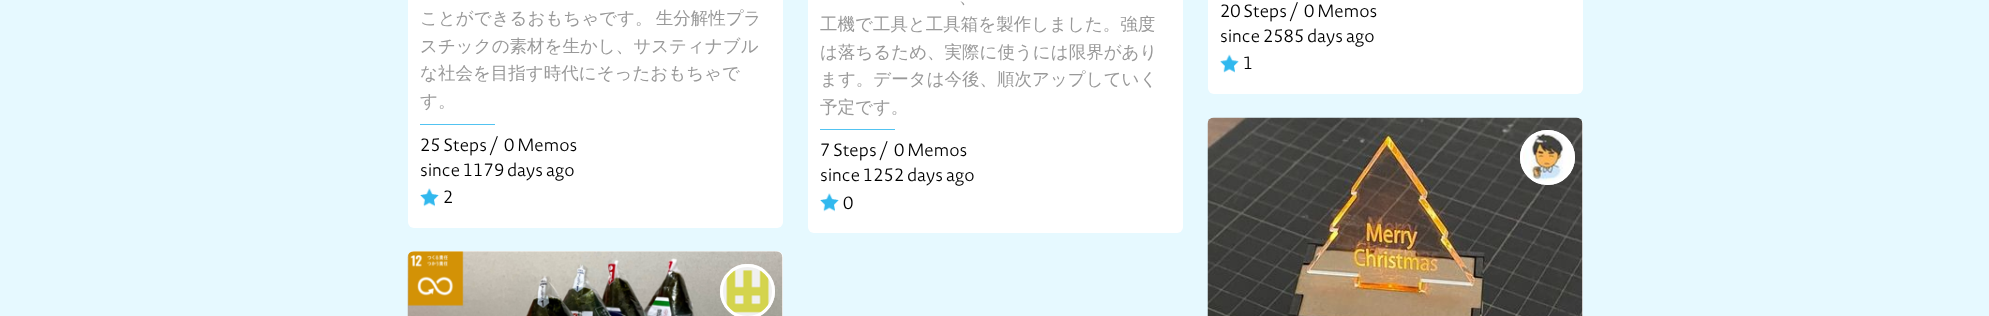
async function draw(canvas) {
  canvas.width = 1989
  canvas.height = 316
  const ctx = canvas.getContext('2d')
  ctx.miterLimit = 4
  ctx.fontKerning = 'normal'
  async function loadImage(src) {
    const img = new Image()
    img.src = src
    await img.decode()
    return img
  }

  ctx.fillStyle = '#e6f9ff'
  ctx.fillRect(0, 0, 1989, 316)
  ctx.fillStyle = '#fff'
  ctx.beginPath()
  ctx.roundRect(408, -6, 375, 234, 6)
  ctx.fill()
  ctx.wordSpacing = '-2px'
  ctx.font = '500 17.5px WenQuanYi Zen Hei'
  ctx.fillStyle = '#999'
  ctx.fillText('ことができるおもちゃです。 生分解性プラ', 420, 24)
  ctx.wordSpacing = '0px'
  ctx.fillText('スチックの素材を生かし、サスティナブル', 420, 52)
  ctx.fillText('な社会を目指す時代にそったおもちゃで', 420, 79)
  ctx.fillText('す。', 420, 107)
  ctx.fillStyle = '#52c3f1'
  ctx.fillRect(420, 124, 75, 1)
  ctx.font = '300 17.5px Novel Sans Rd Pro'
  ctx.fillStyle = '#000'
  ctx.fillText('25 Steps /', 420, 151)
  ctx.fillText('0 Memos', 504, 151)
  ctx.fillText('since 1179 days ago', 420, 176)
  ctx.drawImage(await loadImage('image0.png'), 420, 188, 19, 19)
  ctx.fillText('2', 443, 203)
  ctx.fillStyle = '#fff'
  ctx.beginPath()
  ctx.roundRect(808, -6, 375, 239, 6)
  ctx.fill()
  ctx.font = '500 17.5px WenQuanYi Zen Hei'
  ctx.fillStyle = '#999'
  ctx.fillText('、', 959, 3)
  ctx.fillText('工機で工具と工具箱を製作しました。強度', 820, 30)
  ctx.fillText('は落ちるため、実際に使うには限界があり', 820, 58)
  ctx.fillText('ます。データは今後、順次アップしていく', 820, 85)
  ctx.fillText('予定です。', 820, 113)
  ctx.fillStyle = '#52c3f1'
  ctx.fillRect(820, 129, 75, 1)
  ctx.font = '300 17.5px Novel Sans Rd Pro'
  ctx.fillStyle = '#000'
  ctx.fillText('7 Steps /', 820, 156)
  ctx.fillText('0 Memos', 894, 156)
  ctx.fillText('since 1252 days ago', 820, 181)
  ctx.drawImage(await loadImage('image0.png'), 820, 193, 19, 19)
  ctx.fillText('0', 843, 209)
  ctx.fillStyle = '#fff'
  ctx.beginPath()
  ctx.roundRect(1208, -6, 375, 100, 6)
  ctx.fill()
  ctx.fillStyle = '#000'
  ctx.fillText('20 Steps /', 1220, 17)
  ctx.fillText('0 Memos', 1304, 17)
  ctx.fillText('since 2585 days ago', 1220, 42)
  ctx.drawImage(await loadImage('image1.png'), 1220, 54, 19, 19)
  ctx.fillText('1', 1243, 69)
  ctx.fillStyle = '#fff'
  ctx.beginPath()
  ctx.roundRect(408, 251, 375, 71, 6)
  ctx.fill()
  ctx.drawImage(await loadImage('image2.png'), 407, 251, 376, 65)
  ctx.drawImage(await loadImage('image3.png'), 720, 264, 55, 52)
  ctx.beginPath()
  ctx.arc(747.5, 291.5, 26, 0, 2 * Math.PI)
  ctx.strokeStyle = '#fff'
  ctx.lineWidth = 3
  ctx.stroke()
  ctx.beginPath()
  ctx.roundRect(1208, 118, 375, 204, 6)
  ctx.fill()
  ctx.drawImage(await loadImage('image4.png'), 1207, 117, 376, 199)
  ctx.drawImage(await loadImage('image5.png'), 1520, 130, 55, 55)
  ctx.beginPath()
  ctx.arc(1547.5, 157.5, 26, 0, 2 * Math.PI)
  ctx.stroke()
}

draw(document.querySelector('canvas'))
